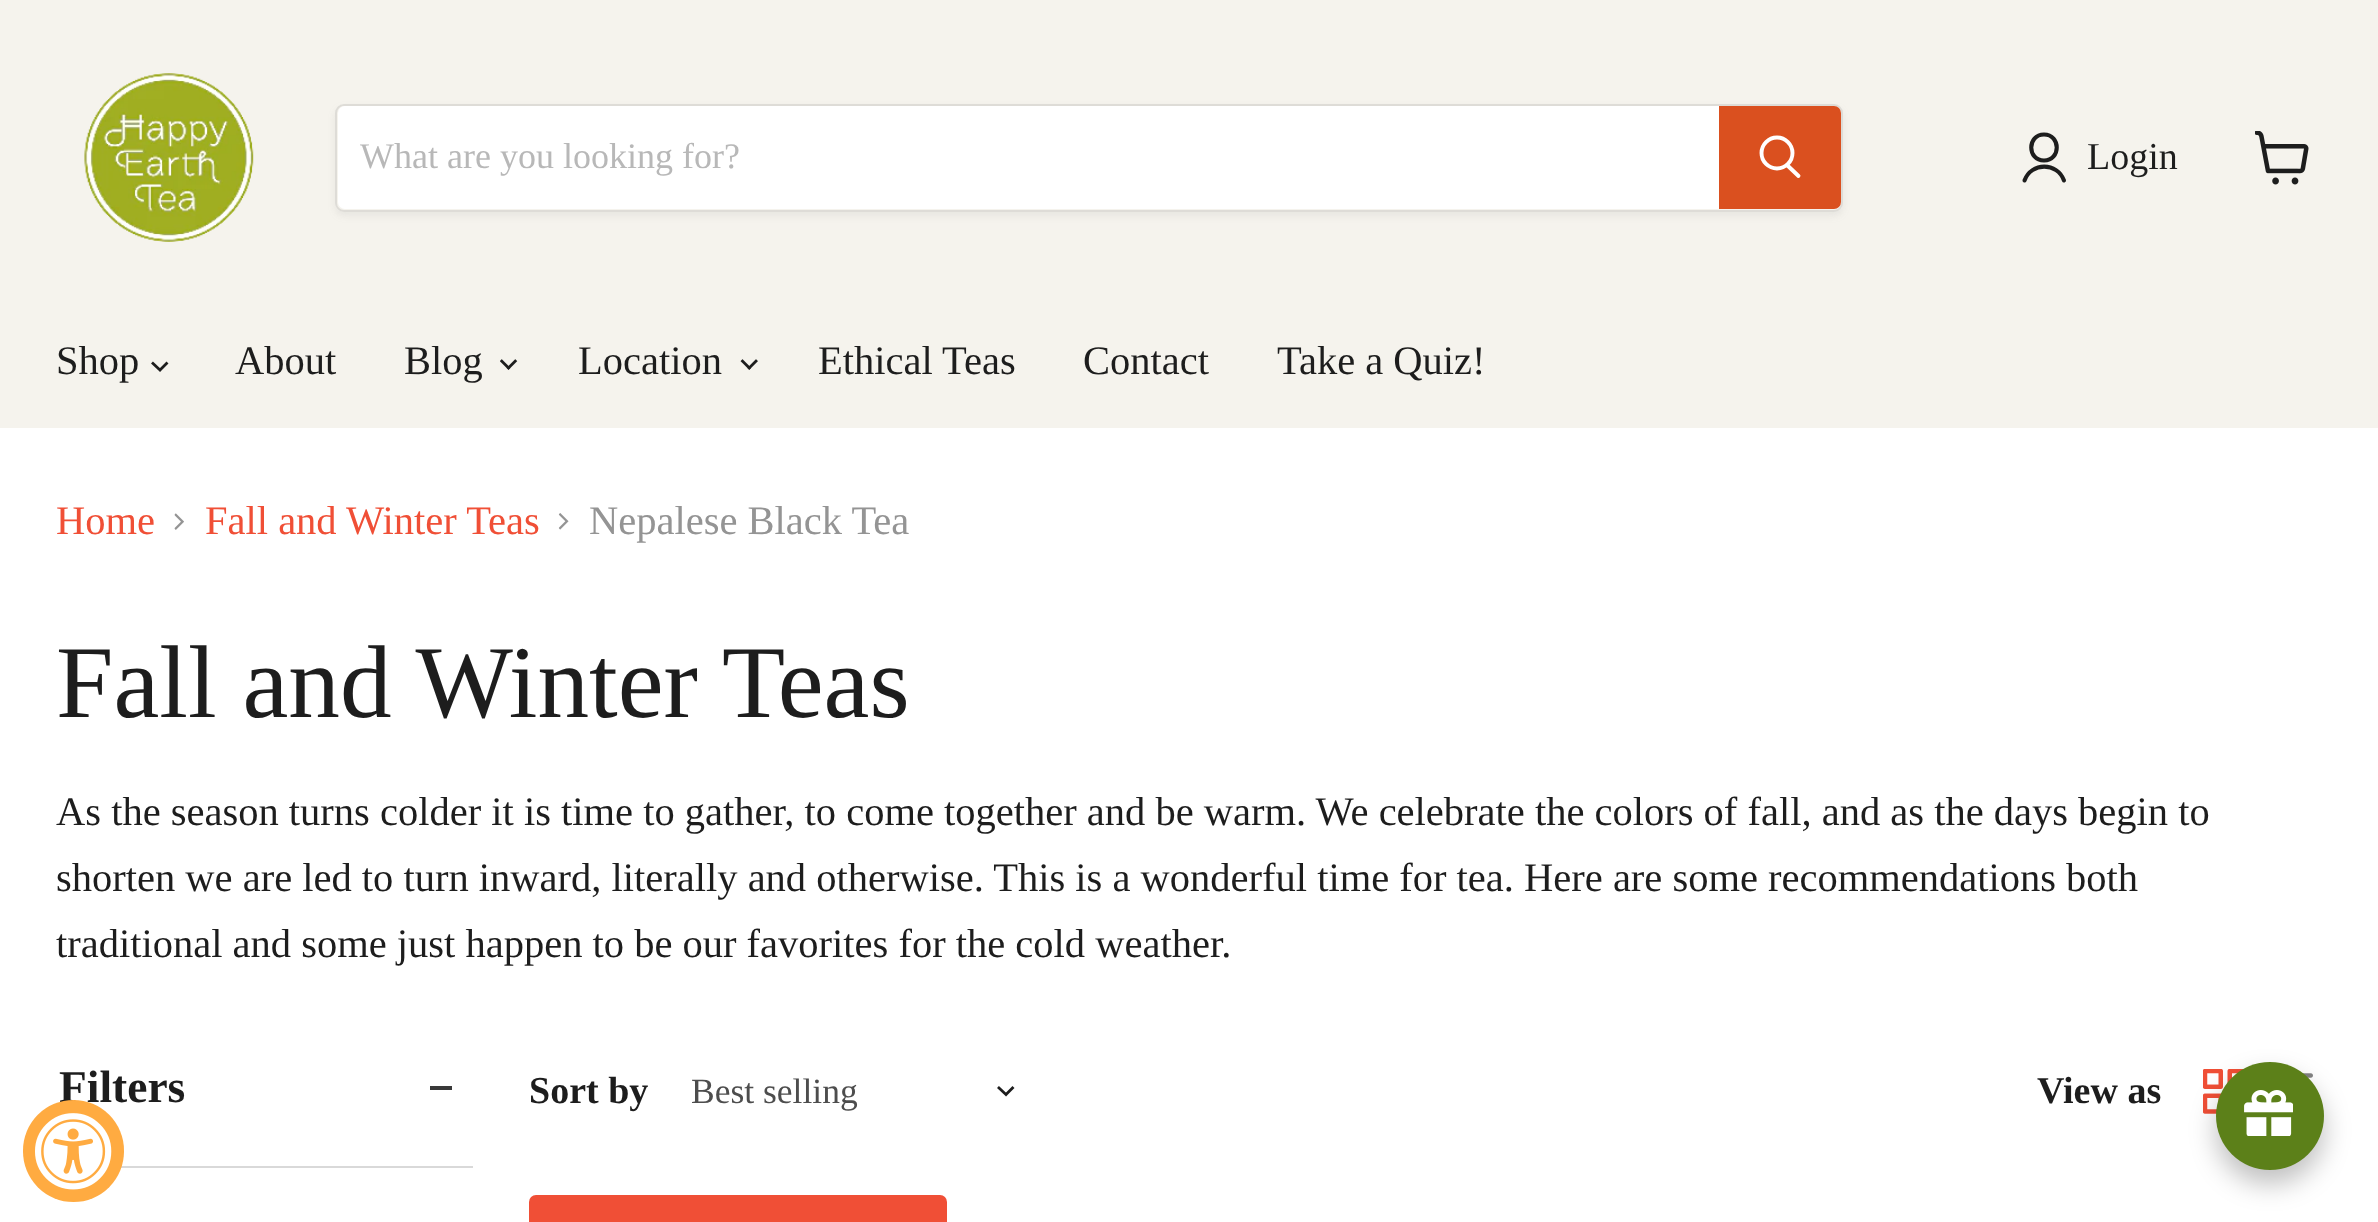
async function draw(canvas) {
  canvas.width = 2378
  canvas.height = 1222
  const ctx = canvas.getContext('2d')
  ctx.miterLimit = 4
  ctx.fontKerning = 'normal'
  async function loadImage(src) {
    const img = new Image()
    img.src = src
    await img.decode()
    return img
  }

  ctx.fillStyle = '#fff'
  ctx.fillRect(0, 0, 2378, 1222)
  ctx.fillStyle = '#f5f3ed'
  ctx.fillRect(0, 0, 2378, 428)
  ctx.drawImage(await loadImage('image0.png'), 84, 73, 170, 169)
  ctx.save()
  ctx.beginPath()
  ctx.moveTo(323, 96)
  ctx.lineTo(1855, 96)
  ctx.lineTo(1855, 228)
  ctx.lineTo(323, 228)
  ctx.closePath()
  ctx.moveTo(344, 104)
  ctx.lineTo(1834, 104)
  ctx.bezierCurveTo(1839, 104, 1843, 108, 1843, 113)
  ctx.lineTo(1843, 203)
  ctx.bezierCurveTo(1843, 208, 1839, 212, 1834, 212)
  ctx.lineTo(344, 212)
  ctx.bezierCurveTo(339, 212, 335, 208, 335, 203)
  ctx.lineTo(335, 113)
  ctx.bezierCurveTo(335, 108, 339, 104, 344, 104)
  ctx.closePath()
  ctx.clip('evenodd')
  ctx.fillStyle = '#8080801c'
  ctx.filter = 'blur(3.5px)'
  ctx.beginPath()
  ctx.roundRect(335, 108, 1508, 108, 9)
  ctx.fill()
  ctx.filter = 'none'
  ctx.restore()
  ctx.beginPath()
  ctx.roundRect(336, 105, 1506, 106, 8)
  ctx.strokeStyle = '#80808033'
  ctx.lineWidth = 2
  ctx.stroke()
  ctx.fillStyle = '#fff'
  ctx.beginPath()
  ctx.roundRect(338, 106, 1381, 103, [7, 0, 0, 7])
  ctx.fill()
  ctx.font = '36px Liberation Serif'
  ctx.fillStyle = '#b8b8b8'
  ctx.fillText('What are you looking for?', 360, 168)
  ctx.fillStyle = '#da501f'
  ctx.beginPath()
  ctx.roundRect(1720, 107, 120, 101, [0, 6, 6, 0])
  ctx.fill()
  ctx.strokeStyle = '#da501f'
  ctx.stroke()
  ctx.beginPath()
  ctx.moveTo(1798.5, 176)
  ctx.lineTo(1787.5, 165.5)
  ctx.strokeStyle = '#fff'
  ctx.lineWidth = 3.9
  ctx.lineCap = 'round'
  ctx.stroke()
  ctx.beginPath()
  ctx.arc(1777, 153, 15.5, 0, 2 * Math.PI)
  ctx.stroke()
  ctx.beginPath()
  ctx.moveTo(2044, 160.5)
  ctx.bezierCurveTo(2061, 160.5, 2061, 134.5, 2044, 134.5)
  ctx.bezierCurveTo(2027, 134.5, 2027, 160.5, 2044, 160.5)
  ctx.closePath()
  ctx.moveTo(2064, 180.5)
  ctx.bezierCurveTo(2057.5, 162, 2031, 162, 2024.5, 180.5)
  ctx.strokeStyle = '#1d1d1d'
  ctx.lineWidth = 4.1
  ctx.lineJoin = 'round'
  ctx.stroke()
  ctx.font = '38px Liberation Serif'
  ctx.fillStyle = '#1d1d1d'
  ctx.fillText('Login', 2087, 169)
  ctx.drawImage(await loadImage('image1.png'), 2255, 131, 54, 54)
  ctx.font = '40.5px Liberation Serif'
  ctx.fillText('Shop', 56, 374)
  ctx.beginPath()
  ctx.moveTo(160, 370)
  ctx.lineTo(166.5, 363.5)
  ctx.moveTo(160, 370)
  ctx.lineTo(153, 363.5)
  ctx.lineWidth = 2.8
  ctx.lineCap = 'square'
  ctx.lineJoin = 'miter'
  ctx.stroke()
  ctx.fillText('About', 235, 374)
  ctx.fillText('Blog', 404, 374)
  ctx.drawImage(await loadImage('image2.png'), 500, 359, 18, 11)
  ctx.fillText('Location', 578, 374)
  ctx.drawImage(await loadImage('image3.png'), 740, 359, 18, 11)
  ctx.fillText('Ethical Teas', 818, 374)
  ctx.fillText('Contact', 1083, 374)
  ctx.fillText('Take a Quiz!', 1277, 374)
  ctx.fillStyle = '#f04f36'
  ctx.fillText('Home', 56, 534)
  ctx.drawImage(await loadImage('image4.png'), 174, 513, 10, 17)
  ctx.fillText('Fall and Winter Teas', 205, 534)
  ctx.drawImage(await loadImage('image5.png'), 558, 513, 11, 17)
  ctx.fillStyle = '#949494'
  ctx.fillText('Nepalese Black Tea', 589, 534)
  ctx.font = '103.25px Liberation Serif'
  ctx.fillStyle = '#1d1d1d'
  ctx.fillText('Fall and Winter Teas', 56, 717)
  ctx.font = '40.5px Liberation Serif'
  ctx.fillText('As the season turns colder it is time to gather, to come together and be warm. We celebrate the colors of fall, and as the days begin to', 56, 825)
  ctx.fillText('shorten we are led to turn inward, literally and otherwise. This is a wonderful time for tea. Here are some recommendations both', 56, 891)
  ctx.fillText('traditional and some just happen to be our favorites for the cold weather.', 56, 957)
  ctx.font = 'bold 45.5px Liberation Serif'
  ctx.fillText('Filters', 59, 1102)
  ctx.fillStyle = '#393939'
  ctx.fillRect(430, 1086, 22, 4)
  ctx.fillStyle = '#d9d9d9'
  ctx.fillRect(121, 1166, 352, 2)
  ctx.font = 'bold 38px Liberation Serif'
  ctx.fillStyle = '#1d1d1d'
  ctx.fillText('Sort by', 529, 1103)
  ctx.font = '35.5px Liberation Serif'
  ctx.fillStyle = '#4d4d4d'
  ctx.fillText('Best selling', 691, 1103)
  ctx.beginPath()
  ctx.moveTo(1006, 1094.5)
  ctx.lineTo(1012.5, 1088)
  ctx.moveTo(1006, 1094.5)
  ctx.lineTo(999, 1088)
  ctx.stroke()
  ctx.drawImage(await loadImage('image6.png'), 2203, 1069, 41, 45)
  ctx.drawImage(await loadImage('image7.png'), 2302, 1073, 11, 5)
  ctx.font = 'bold 38px Liberation Serif'
  ctx.fillStyle = '#1d1d1d'
  ctx.fillText('View as', 2037, 1103)
  ctx.fillStyle = '#f04f36'
  ctx.beginPath()
  ctx.roundRect(529, 1195, 418, 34, 7)
  ctx.fill()
  ctx.fillStyle = '#00000040'
  ctx.filter = 'blur(13.5px)'
  ctx.beginPath()
  ctx.roundRect(2216, 1076, 108, 108, 54)
  ctx.fill()
  ctx.filter = 'none'
  ctx.fillStyle = '#5c8019'
  ctx.beginPath()
  ctx.arc(2270, 1116, 54, 0, 2 * Math.PI)
  ctx.fill()
  ctx.drawImage(await loadImage('image8.png'), 2244, 1090, 49, 46)
  ctx.fillStyle = '#ffab41'
  ctx.beginPath()
  ctx.roundRect(23, 1100, 101, 102, 50.5)
  ctx.fill()
  ctx.drawImage(await loadImage('image9.png'), 35, 1113, 77, 77)
}

draw(document.querySelector('canvas'))
